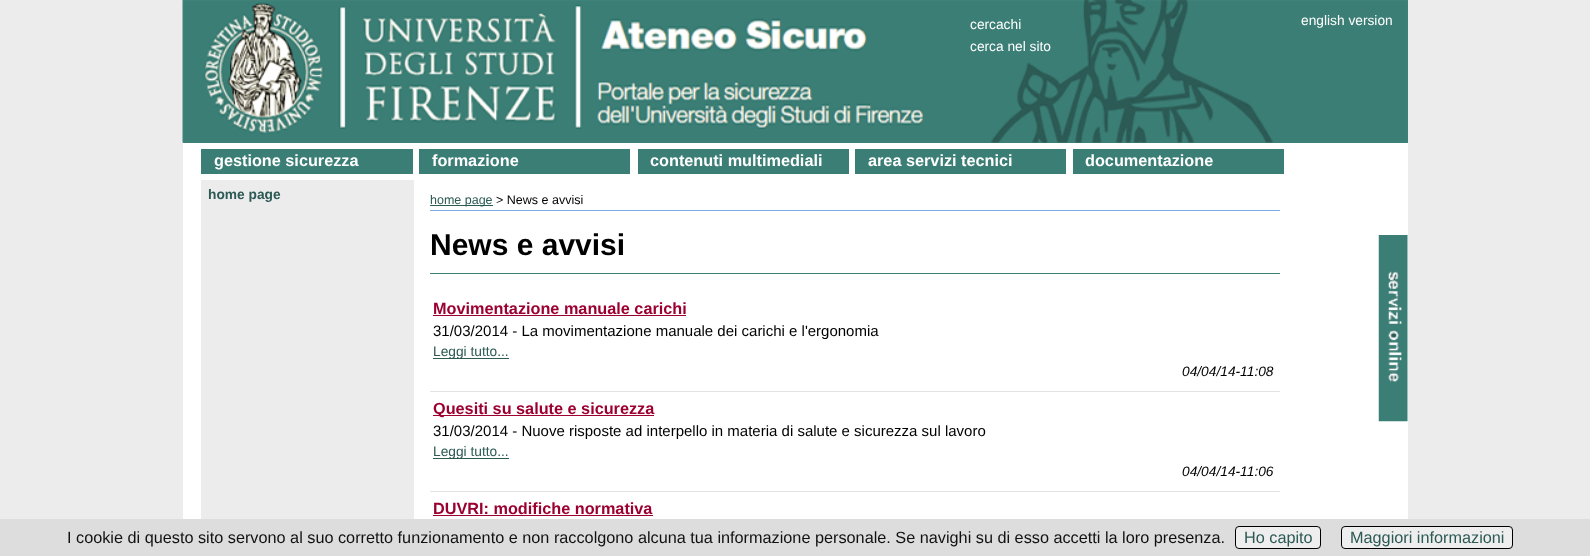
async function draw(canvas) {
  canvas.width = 1590
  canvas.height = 556
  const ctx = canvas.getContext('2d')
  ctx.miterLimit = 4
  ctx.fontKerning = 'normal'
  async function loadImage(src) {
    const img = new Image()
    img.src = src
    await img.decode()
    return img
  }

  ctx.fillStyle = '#ececec'
  ctx.fillRect(0, 0, 1590, 556)
  ctx.fillStyle = '#fff'
  ctx.fillRect(183, 143, 1225, 376)
  ctx.fillStyle = '#3b7e75'
  ctx.fillRect(183, 0, 1225, 143)
  ctx.drawImage(await loadImage('image0.png'), 182, 0, 1226, 143)
  ctx.font = '13.75px Liberation Sans'
  ctx.fillStyle = '#fff'
  ctx.fillText('cercachi', 970, 29)
  ctx.fillText('cerca nel sito', 970, 51)
  ctx.fillText('english version', 1301, 25)
  ctx.drawImage(await loadImage('image1.png'), 1378, 235, 30, 187)
  ctx.fillStyle = '#3b7e75'
  ctx.fillRect(201, 149, 212, 25)
  ctx.font = 'bold 16.25px Liberation Sans'
  ctx.fillStyle = '#fff'
  ctx.fillText('gestione sicurezza', 214, 166)
  ctx.fillStyle = '#3b7e75'
  ctx.fillRect(419, 149, 211, 25)
  ctx.fillStyle = '#fff'
  ctx.fillText('formazione', 432, 166)
  ctx.fillStyle = '#3b7e75'
  ctx.fillRect(638, 149, 211, 25)
  ctx.fillStyle = '#fff'
  ctx.fillText('contenuti multimediali', 650, 166)
  ctx.fillStyle = '#3b7e75'
  ctx.fillRect(855, 149, 211, 25)
  ctx.fillStyle = '#fff'
  ctx.fillText('area servizi tecnici', 868, 166)
  ctx.fillStyle = '#3b7e75'
  ctx.fillRect(1073, 149, 211, 25)
  ctx.fillStyle = '#fff'
  ctx.fillText('documentazione', 1085, 166)
  ctx.fillStyle = '#ececec'
  ctx.fillRect(201, 180, 213, 339)
  ctx.font = 'bold 13.75px Liberation Sans'
  ctx.fillStyle = '#2c5a54'
  ctx.fillText('home page', 208, 199)
  ctx.fillStyle = '#78afe5'
  ctx.fillRect(430, 210, 850, 1)
  ctx.fillStyle = '#2c5a54'
  ctx.fillRect(430, 205, 63, 1)
  ctx.font = '12.5px Liberation Sans'
  ctx.fillText('home page', 430, 204)
  ctx.fillStyle = '#000'
  ctx.fillText('> News e avvisi', 496, 204)
  ctx.fillStyle = '#3b7e75'
  ctx.fillRect(430, 273, 850, 1)
  ctx.font = 'bold 30px Liberation Sans'
  ctx.fillStyle = '#000'
  ctx.fillText('News e avvisi', 430, 255)
  ctx.fillStyle = '#e4e3e3'
  ctx.fillRect(430, 391, 850, 1)
  ctx.font = 'bold 16.25px Liberation Sans'
  ctx.fillStyle = '#9c0031'
  ctx.fillText('Movimentazione manuale carichi', 433, 314)
  ctx.fillRect(433, 315, 253, 1)
  ctx.font = '15px Liberation Sans'
  ctx.fillStyle = '#000'
  ctx.fillText('31/03/2014 - La movimentazione manuale dei carichi e l\'ergonomia', 433, 336)
  ctx.fillStyle = '#2c5a54'
  ctx.fillRect(433, 358, 76, 1)
  ctx.font = '13.75px Liberation Sans'
  ctx.fillText('Leggi tutto...', 433, 356)
  ctx.font = 'italic 13.75px Liberation Sans'
  ctx.fillStyle = '#000'
  ctx.fillText('04/04/14-11:08', 1182, 376)
  ctx.fillStyle = '#e4e3e3'
  ctx.fillRect(430, 491, 850, 1)
  ctx.fillStyle = '#9c0031'
  ctx.fillRect(433, 415, 221, 1)
  ctx.font = 'bold 16.25px Liberation Sans'
  ctx.fillText('Quesiti su salute e sicurezza', 433, 414)
  ctx.font = '15px Liberation Sans'
  ctx.fillStyle = '#000'
  ctx.fillText('31/03/2014 - Nuove risposte ad interpello in materia di salute e sicurezza sul lavoro', 433, 436)
  ctx.fillStyle = '#2c5a54'
  ctx.fillRect(433, 458, 76, 1)
  ctx.font = '13.75px Liberation Sans'
  ctx.fillText('Leggi tutto...', 433, 456)
  ctx.font = 'italic 13.75px Liberation Sans'
  ctx.fillStyle = '#000'
  ctx.fillText('04/04/14-11:06', 1182, 476)
  ctx.font = 'bold 16.25px Liberation Sans'
  ctx.fillStyle = '#9c0031'
  ctx.fillText('DUVRI: modifiche normativa', 433, 514)
  ctx.fillRect(433, 515, 220, 1)
  ctx.fillStyle = '#ddd'
  ctx.fillRect(0, 519, 1590, 37)
  ctx.font = '16.25px Liberation Sans'
  ctx.fillStyle = '#111'
  ctx.fillText('I cookie di questo sito servono al suo corretto funzionamento e non raccolgono alcuna tua informazione personale. Se navighi su di esso accetti la loro presenza.', 67, 543)
  ctx.fillStyle = '#eee'
  ctx.beginPath()
  ctx.roundRect(1235.5, 526.5, 85, 22, 3.5)
  ctx.fill()
  ctx.strokeStyle = '#000'
  ctx.stroke()
  ctx.fillStyle = '#2c5a54'
  ctx.fillText('Ho capito', 1244, 543)
  ctx.fillStyle = '#eee'
  ctx.beginPath()
  ctx.roundRect(1341.5, 526.5, 171, 22, 3.5)
  ctx.fill()
  ctx.stroke()
  ctx.fillStyle = '#2c5a54'
  ctx.fillText('Maggiori informazioni', 1350, 543)
}

draw(document.querySelector('canvas'))
